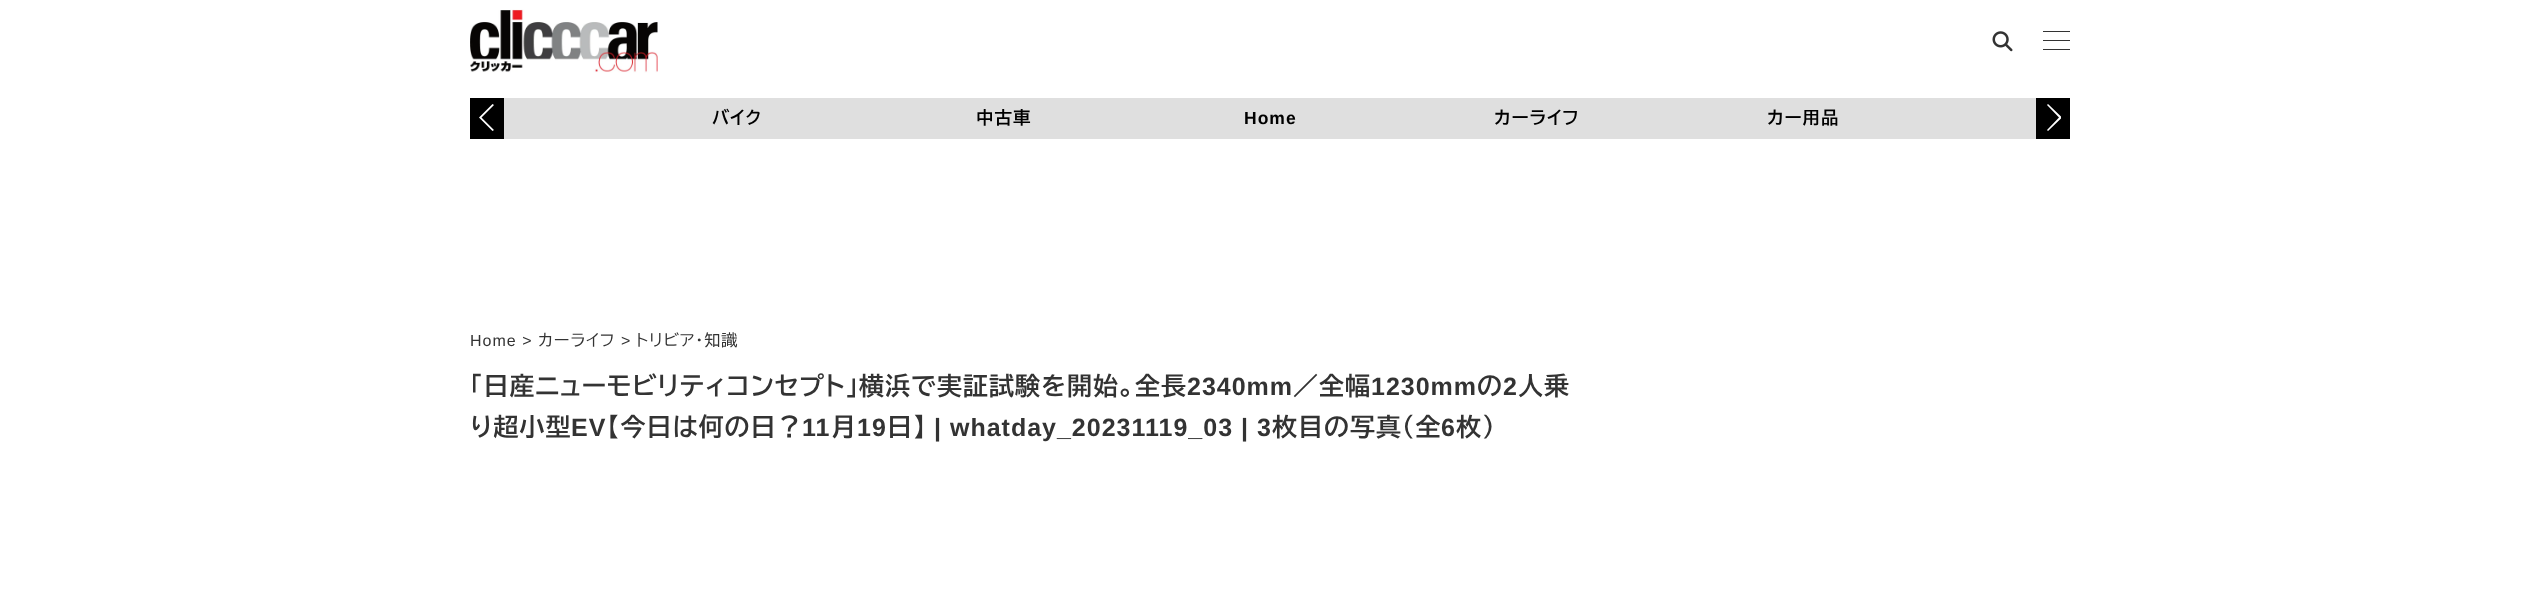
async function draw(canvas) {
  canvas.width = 2539
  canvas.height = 596
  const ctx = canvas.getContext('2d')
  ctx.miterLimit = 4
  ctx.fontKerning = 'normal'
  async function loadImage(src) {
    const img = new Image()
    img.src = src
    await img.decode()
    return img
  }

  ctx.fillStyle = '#fff'
  ctx.fillRect(0, 0, 2539, 596)
  ctx.drawImage(await loadImage('image0.png'), 470, 9, 188, 64)
  ctx.drawImage(await loadImage('image1.png'), 1992, 31, 21, 21)
  ctx.fillStyle = '#333'
  ctx.fillRect(2043, 31, 27, 1)
  ctx.fillRect(2043, 40, 27, 1)
  ctx.fillRect(2043, 49, 27, 1)
  ctx.fillStyle = '#000'
  ctx.fillRect(470, 98, 34, 41)
  ctx.fillStyle = '#fff'
  ctx.beginPath()
  ctx.moveTo(479, 117.5)
  ctx.lineTo(492.5, 104)
  ctx.lineTo(494, 105)
  ctx.lineTo(481.5, 117.5)
  ctx.lineTo(494, 130)
  ctx.lineTo(492.5, 131)
  ctx.closePath()
  ctx.fill()
  ctx.fillStyle = '#dfdfdf'
  ctx.fillRect(504, 98, 632, 41)
  ctx.letterSpacing = '1px'
  ctx.font = 'bold 17.5px BIZ UDPGothic'
  ctx.fillStyle = '#000'
  ctx.fillText('バイク', 712, 124)
  ctx.fillText('中古車', 976, 124)
  ctx.fillStyle = '#dfdfdf'
  ctx.fillRect(1136, 98, 900, 41)
  ctx.font = 'bold 17.5px Liberation Sans'
  ctx.fillStyle = '#000'
  ctx.fillText('Home', 1244, 124)
  ctx.font = 'bold 17.5px BIZ UDPGothic'
  ctx.fillText('カーライフ', 1494, 124)
  ctx.fillText('カー用品', 1767, 124)
  ctx.fillRect(2036, 98, 34, 41)
  ctx.save()
  ctx.beginPath()
  ctx.rect(2045, 104, 16, 27)
  ctx.clip()
  ctx.fillStyle = '#fff'
  ctx.beginPath()
  ctx.moveTo(2062, 117.5)
  ctx.lineTo(2048, 131)
  ctx.lineTo(2047, 130)
  ctx.lineTo(2059, 117.5)
  ctx.lineTo(2047, 105)
  ctx.lineTo(2048, 104)
  ctx.closePath()
  ctx.fill()
  ctx.restore()
  ctx.font = '16px Liberation Sans'
  ctx.fillStyle = '#333'
  ctx.fillText('Home >', 470, 346)
  ctx.font = '16px BIZ UDPGothic'
  ctx.fillText('カーライフ', 538, 346)
  ctx.font = '16px Liberation Sans'
  ctx.fillText('>', 621, 346)
  ctx.font = '16px BIZ UDPGothic'
  ctx.fillText('トリビア・知識', 636, 346)
  ctx.font = 'bold 25px BIZ UDPGothic'
  ctx.fillText('「日産ニューモビリティコンセプト」横浜で実証試験を開始。全長', 470, 395)
  ctx.font = 'bold 25px Liberation Sans'
  ctx.fillText('2340mm', 1187, 395)
  ctx.font = 'bold 25px BIZ UDPGothic'
  ctx.fillText('／全幅', 1293, 395)
  ctx.font = 'bold 25px Liberation Sans'
  ctx.fillText('1230mm', 1371, 395)
  ctx.font = 'bold 25px BIZ UDPGothic'
  ctx.fillText('の', 1477, 395)
  ctx.font = 'bold 25px Liberation Sans'
  ctx.fillText('2', 1503, 395)
  ctx.font = 'bold 25px BIZ UDPGothic'
  ctx.fillText('人乗', 1518, 395)
  ctx.fillText('り超小型', 470, 436)
  ctx.font = 'bold 25px Liberation Sans'
  ctx.fillText('EV', 571, 436)
  ctx.font = 'bold 25px BIZ UDPGothic'
  ctx.fillText('【今日は何の日？', 607, 436)
  ctx.font = 'bold 25px Liberation Sans'
  ctx.fillText('11', 802, 436)
  ctx.font = 'bold 25px BIZ UDPGothic'
  ctx.fillText('月', 831, 436)
  ctx.font = 'bold 25px Liberation Sans'
  ctx.fillText('19', 857, 436)
  ctx.font = 'bold 25px BIZ UDPGothic'
  ctx.fillText('日】', 887, 436)
  ctx.font = 'bold 25px Liberation Sans'
  ctx.fillText('| whatday_20231119_03 | 3', 934, 436)
  ctx.font = 'bold 25px BIZ UDPGothic'
  ctx.fillText('枚目の写真（全', 1272, 436)
  ctx.font = 'bold 25px Liberation Sans'
  ctx.fillText('6', 1441, 436)
  ctx.font = 'bold 25px BIZ UDPGothic'
  ctx.fillText('枚）', 1456, 436)
}

draw(document.querySelector('canvas'))
